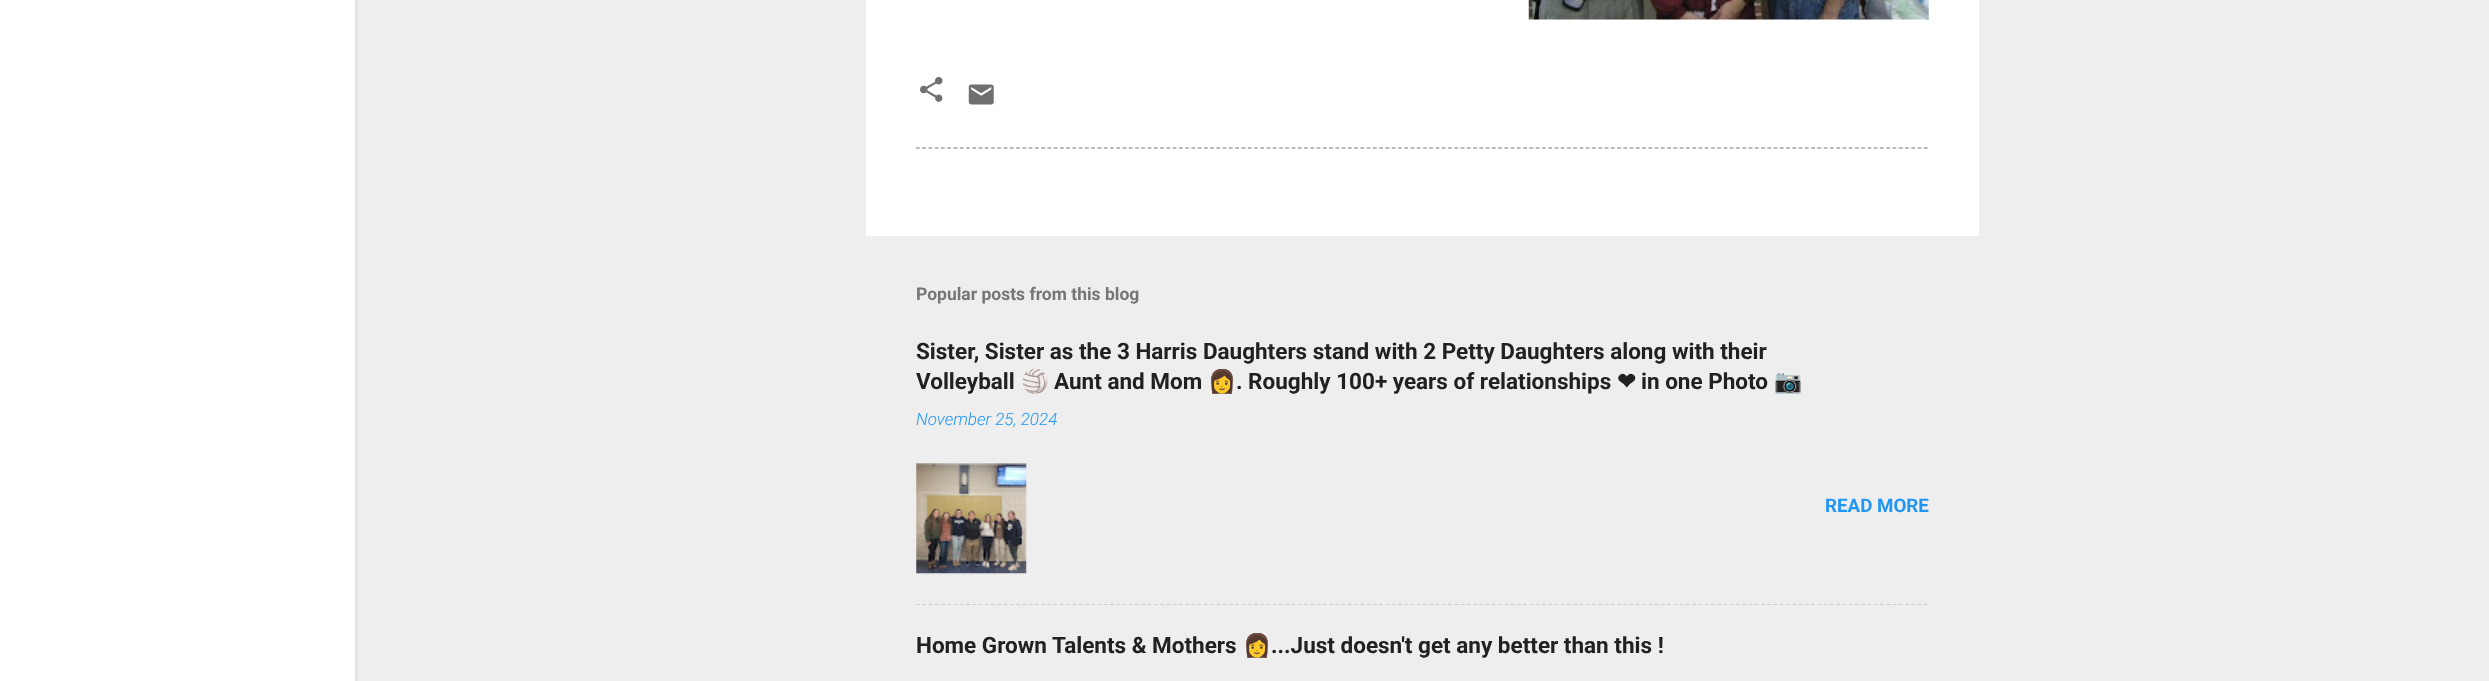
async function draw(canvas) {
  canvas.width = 2489
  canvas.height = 681
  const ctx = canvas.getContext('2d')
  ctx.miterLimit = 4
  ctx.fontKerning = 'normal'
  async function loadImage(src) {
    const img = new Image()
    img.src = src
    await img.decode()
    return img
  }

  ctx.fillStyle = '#eee'
  ctx.fillRect(0, 0, 2489, 681)
  ctx.fillStyle = '#0000001a'
  ctx.filter = 'blur(2px)'
  ctx.beginPath()
  ctx.rect(1, -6, 355, 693)
  ctx.fill()
  ctx.filter = 'none'
  ctx.fillStyle = '#fff'
  ctx.fillRect(0, 0, 355, 681)
  ctx.fillRect(866, 0, 1113, 236)
  ctx.drawImage(await loadImage('image0.png'), 1528, 0, 401, 20)
  ctx.drawImage(await loadImage('image1.png'), 920, 77, 23, 25)
  ctx.drawImage(await loadImage('image2.png'), 968, 84, 26, 21)
  ctx.beginPath()
  ctx.moveTo(916, 148)
  ctx.lineTo(1929, 148)
  ctx.strokeStyle = '#757575'
  ctx.lineWidth = 1.2
  ctx.setLineDash([3.75, 2.51])
  ctx.stroke()
  ctx.font = 'bold 17.5px Roboto'
  ctx.fillStyle = '#757575'
  ctx.fillText('Popular posts from this blog', 916, 300)
  ctx.font = 'bold 22.5px Roboto'
  ctx.fillStyle = '#212121'
  ctx.fillText('Sister, Sister as the 3 Harris Daughters stand with 2 Petty Daughters along with their', 916, 359)
  ctx.fillText('Volleyball', 916, 389)
  ctx.font = 'bold 22.5px Noto Color Emoji'
  ctx.fillText('🏐', 1021, 389)
  ctx.font = 'bold 22.5px Roboto'
  ctx.fillText('Aunt and Mom', 1054, 389)
  ctx.font = 'bold 22.5px Noto Color Emoji'
  ctx.fillText('👩', 1208, 389)
  ctx.font = 'bold 22.5px Roboto'
  ctx.fillText('. Roughly 100+ years of relationships', 1236, 389)
  ctx.font = 'bold 22.5px DejaVu Sans'
  ctx.fillText('❤', 1617, 389)
  ctx.font = 'bold 22.5px Roboto'
  ctx.fillText('in one Photo', 1641, 389)
  ctx.font = 'bold 22.5px Noto Color Emoji'
  ctx.fillText('📷', 1774, 389)
  ctx.font = 'italic 300 17px Roboto'
  ctx.fillStyle = '#2196f3'
  ctx.fillText('November 25, 2024', 916, 425)
  ctx.drawImage(await loadImage('image3.png'), 916, 463, 111, 111)
  ctx.font = 'bold 18.75px Roboto'
  ctx.fillText('READ MORE', 1825, 512)
  ctx.beginPath()
  ctx.moveTo(916, 604.5)
  ctx.lineTo(1929, 604.5)
  ctx.strokeStyle = '#ccc'
  ctx.stroke()
  ctx.font = 'bold 22.5px Roboto'
  ctx.fillStyle = '#212121'
  ctx.fillText('Home Grown Talents & Mothers', 916, 653)
  ctx.font = 'bold 22.5px Noto Color Emoji'
  ctx.fillText('👩', 1243, 653)
  ctx.font = 'bold 22.5px Roboto'
  ctx.fillText('...Just doesn\'t get any better than this !', 1271, 653)
}

draw(document.querySelector('canvas'))
